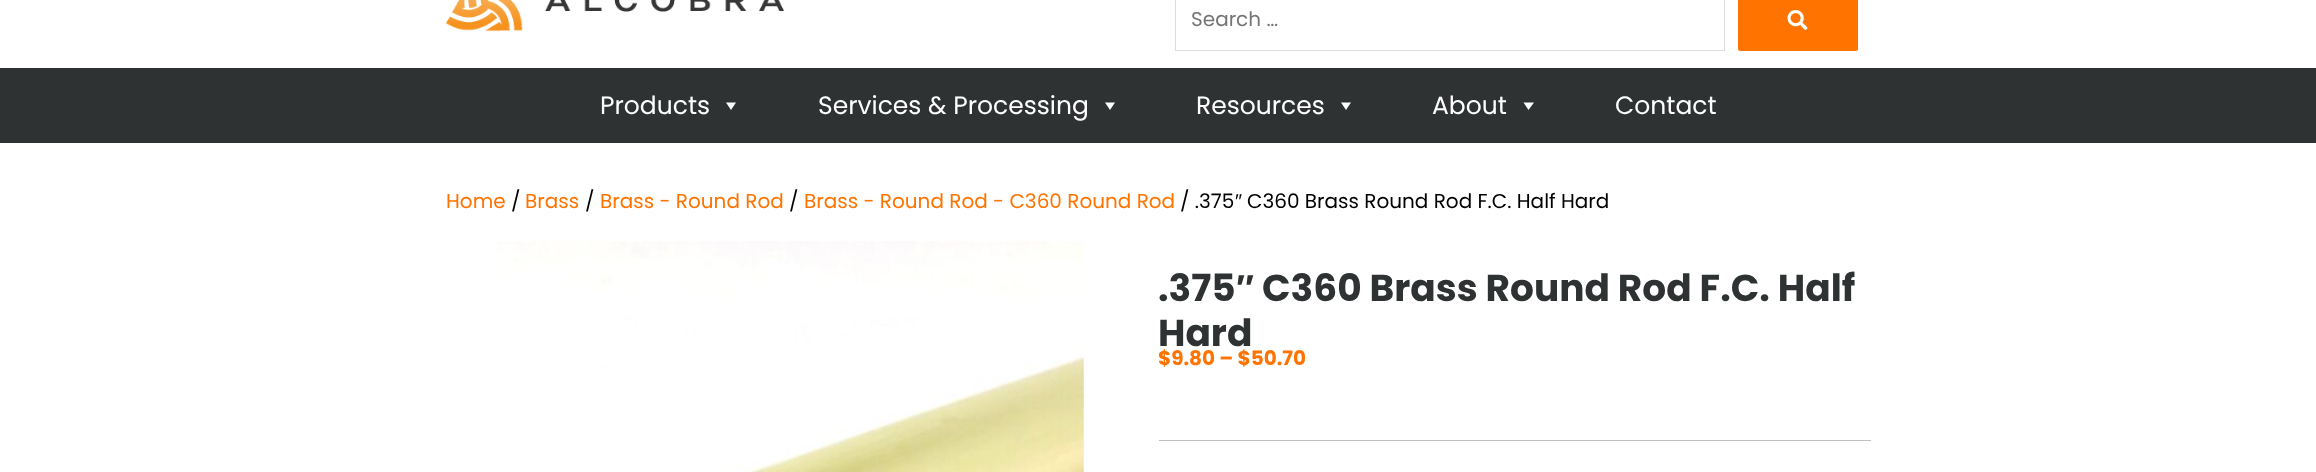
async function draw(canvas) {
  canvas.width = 2316
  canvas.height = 472
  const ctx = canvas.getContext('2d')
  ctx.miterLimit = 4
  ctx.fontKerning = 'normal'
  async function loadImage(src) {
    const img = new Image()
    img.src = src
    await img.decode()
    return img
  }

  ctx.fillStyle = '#fff'
  ctx.fillRect(0, 0, 2316, 472)
  ctx.drawImage(await loadImage('image0.png'), 446, 0, 338, 32)
  ctx.strokeStyle = '#ddd'
  ctx.strokeRect(1175.5, -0.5, 549, 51)
  ctx.font = '20px Poppins'
  ctx.fillStyle = '#757575'
  ctx.fillText('Search …', 1191, 26)
  ctx.fillStyle = '#ff7400'
  ctx.beginPath()
  ctx.roundRect(1738, -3, 120, 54, 2.5)
  ctx.fill()
  ctx.drawImage(await loadImage('image1.png'), 1787, 10, 21, 20)
  ctx.fillStyle = '#2e3233'
  ctx.fillRect(0, 68, 2316, 75)
  ctx.font = '25px Poppins'
  ctx.fillStyle = '#fff'
  ctx.fillText('Products', 600, 114)
  ctx.beginPath()
  ctx.moveTo(736, 102.5)
  ctx.lineTo(731, 110)
  ctx.lineTo(726, 102.5)
  ctx.closePath()
  ctx.fill()
  ctx.fillText('Services & Processing', 818, 114)
  ctx.beginPath()
  ctx.moveTo(1115, 102.5)
  ctx.lineTo(1110, 110)
  ctx.lineTo(1105, 102.5)
  ctx.closePath()
  ctx.fill()
  ctx.fillText('Resources', 1196, 114)
  ctx.beginPath()
  ctx.moveTo(1351, 102.5)
  ctx.lineTo(1346, 110)
  ctx.lineTo(1341, 102.5)
  ctx.closePath()
  ctx.fill()
  ctx.fillText('About', 1432, 114)
  ctx.beginPath()
  ctx.moveTo(1534, 102.5)
  ctx.lineTo(1528.5, 110)
  ctx.lineTo(1523.5, 102.5)
  ctx.closePath()
  ctx.fill()
  ctx.fillText('Contact', 1615, 114)
  ctx.font = '20px Poppins'
  ctx.fillStyle = '#ff7400'
  ctx.fillText('Home', 446, 208)
  ctx.fillStyle = '#000'
  ctx.fillText('/', 511, 208)
  ctx.fillStyle = '#ff7400'
  ctx.fillText('Brass', 525, 208)
  ctx.fillStyle = '#000'
  ctx.fillText('/', 585, 208)
  ctx.fillStyle = '#ff7400'
  ctx.fillText('Brass - Round Rod', 600, 208)
  ctx.fillStyle = '#000'
  ctx.fillText('/', 789, 208)
  ctx.fillStyle = '#ff7400'
  ctx.fillText('Brass - Round Rod - C360 Round Rod', 804, 208)
  ctx.fillStyle = '#000'
  ctx.fillText('/ .375', 1180, 208)
  ctx.font = '20px Liberation Sans'
  ctx.fillText('″', 1235, 208)
  ctx.font = '20px Poppins'
  ctx.fillText('C360 Brass Round Rod F.C. Half Hard', 1247, 208)
  ctx.drawImage(await loadImage('image2.png'), 495, 241, 589, 231)
  ctx.font = 'bold 37.5px Poppins'
  ctx.fillStyle = '#2e3233'
  ctx.fillText('.375', 1158, 301)
  ctx.font = 'bold 37.5px Liberation Sans'
  ctx.fillText('″', 1236, 301)
  ctx.font = 'bold 37.5px Poppins'
  ctx.fillText('C360 Brass Round Rod F.C. Half', 1262, 301)
  ctx.fillText('Hard', 1158, 346)
  ctx.font = 'bold 20px Poppins'
  ctx.fillStyle = '#ff7400'
  ctx.fillText('$9.80 – $50.70', 1158, 365)
  ctx.fillStyle = '#c0c0c0'
  ctx.fillRect(1159, 440, 712, 1)
}

draw(document.querySelector('canvas'))
